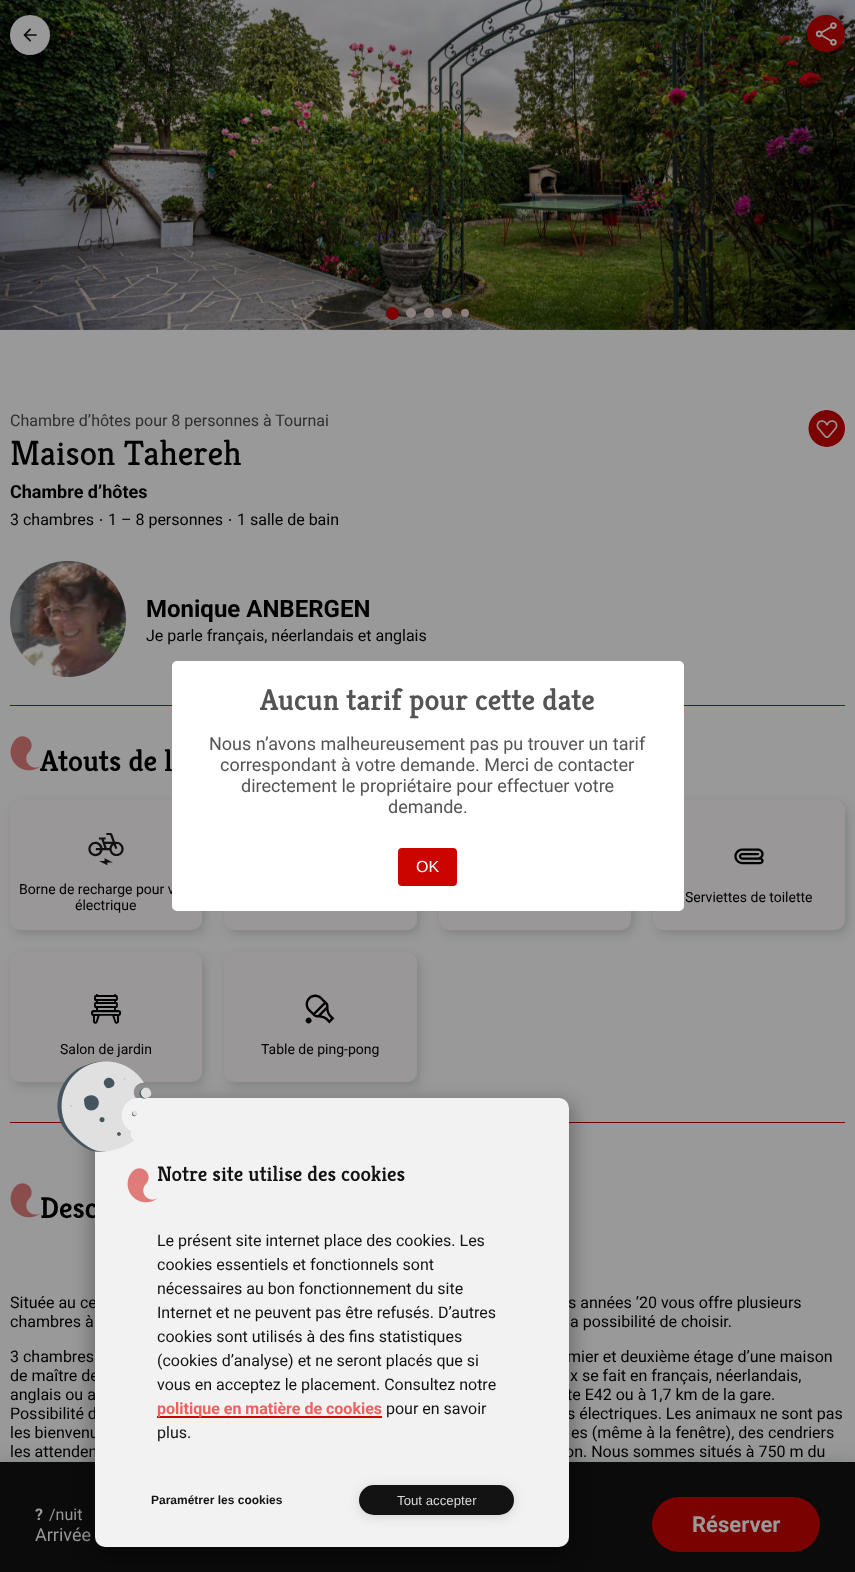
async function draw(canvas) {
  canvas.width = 855
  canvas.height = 1572
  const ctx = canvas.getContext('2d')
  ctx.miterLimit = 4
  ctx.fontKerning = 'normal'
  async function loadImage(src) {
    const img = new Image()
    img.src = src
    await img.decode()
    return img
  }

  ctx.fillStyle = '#999'
  ctx.fillRect(0, 0, 855, 1572)
  ctx.drawImage(await loadImage('image0.png'), 0, 0, 855, 330)
  ctx.fillStyle = '#7a0200'
  ctx.beginPath()
  ctx.arc(392.5, 313.5, 6.5, 0, 2 * Math.PI)
  ctx.fill()
  ctx.fillStyle = '#8f8080'
  ctx.beginPath()
  ctx.arc(411, 313, 5, 0, 2 * Math.PI)
  ctx.fill()
  ctx.beginPath()
  ctx.arc(429, 313, 5, 0, 2 * Math.PI)
  ctx.fill()
  ctx.beginPath()
  ctx.arc(447, 313, 5, 0, 2 * Math.PI)
  ctx.fill()
  ctx.beginPath()
  ctx.arc(465, 313, 4, 0, 2 * Math.PI)
  ctx.fill()
  ctx.fillStyle = '#000000db'
  ctx.filter = 'blur(9.5px)'
  ctx.beginPath()
  ctx.roundRect(12, 17, 36, 36, 18)
  ctx.fill()
  ctx.filter = 'none'
  ctx.fillStyle = '#999'
  ctx.beginPath()
  ctx.arc(30, 35, 20, 0, 2 * Math.PI)
  ctx.fill()
  ctx.drawImage(await loadImage('image1.png'), 23, 28, 14, 14)
  ctx.fillStyle = '#000000bf'
  ctx.filter = 'blur(9.5px)'
  ctx.beginPath()
  ctx.roundRect(809, 17, 34, 33, 16.5)
  ctx.fill()
  ctx.filter = 'none'
  ctx.fillStyle = '#7a0200'
  ctx.beginPath()
  ctx.roundRect(807, 15, 38, 37, 18.5)
  ctx.fill()
  ctx.drawImage(await loadImage('image2.png'), 815, 22, 22, 24)
  ctx.drawImage(await loadImage('image3.png'), 808, 410, 37, 37)
  ctx.font = '16px Roboto'
  ctx.fillStyle = '#2e2e2e'
  ctx.fillText('Chambre d’hôtes pour 8 personnes à Tournai', 10, 426)
  ctx.font = '35px Kreon'
  ctx.fillStyle = '#000'
  ctx.fillText('Maison Tahereh', 10, 465)
  ctx.font = 'bold 18px Roboto'
  ctx.fillText('Chambre d’hôtes', 10, 498)
  ctx.font = '16px Roboto'
  ctx.fillText('3 chambres', 10, 525)
  ctx.beginPath()
  ctx.arc(101, 520, 1, 0, 2 * Math.PI)
  ctx.fill()
  ctx.fillText('1 – 8 personnes', 108, 525)
  ctx.beginPath()
  ctx.arc(230, 520, 1, 0, 2 * Math.PI)
  ctx.fill()
  ctx.fillText('1 salle de bain', 237, 525)
  ctx.drawImage(await loadImage('image4.png'), 10, 561, 116, 116)
  ctx.font = 'bold 24px Roboto'
  ctx.fillText('Monique ANBERGEN', 146, 617)
  ctx.font = '16px Roboto'
  ctx.fillText('Je parle français, néerlandais et anglais', 146, 641)
  ctx.fillStyle = '#000b1733'
  ctx.filter = 'blur(10px)'
  ctx.beginPath()
  ctx.rect(1, 1463, 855, 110)
  ctx.fill()
  ctx.filter = 'none'
  ctx.fillStyle = '#0b0b0b'
  ctx.fillRect(0, 1462, 855, 110)
  ctx.font = 'bold 16px Roboto'
  ctx.fillStyle = '#999'
  ctx.fillText('?', 35, 1520)
  ctx.font = '16px Roboto'
  ctx.fillText('/nuit', 49, 1520)
  ctx.font = '18px Roboto'
  ctx.fillText('Arrivée', 35, 1541)
  ctx.fillStyle = '#7a0200'
  ctx.beginPath()
  ctx.roundRect(652, 1497, 168, 55, 27.5)
  ctx.fill()
  ctx.font = 'bold 22px Roboto'
  ctx.fillStyle = '#999'
  ctx.fillText('Réserver', 692, 1532)
  ctx.fillStyle = '#7a0200'
  ctx.fillRect(10, 705, 835, 1)
  ctx.drawImage(await loadImage('image5.png'), 10, 736, 31, 35)
  ctx.font = '600 30px Kreon'
  ctx.fillStyle = '#000'
  ctx.fillText('Atouts de l', 40, 771)
  ctx.fillStyle = '#000b1726'
  ctx.filter = 'blur(5px)'
  ctx.beginPath()
  ctx.roundRect(13, 804, 192, 130, 10)
  ctx.fill()
  ctx.filter = 'none'
  ctx.fillStyle = '#999797'
  ctx.beginPath()
  ctx.roundRect(10, 800, 192, 130, 10)
  ctx.fill()
  ctx.drawImage(await loadImage('image6.png'), 88, 833, 36, 33)
  ctx.font = '14px Roboto'
  ctx.fillStyle = '#000'
  ctx.fillText('Borne de recharge pour v', 19, 894)
  ctx.fillText('électrique', 75, 910)
  ctx.fillStyle = '#000b1726'
  ctx.filter = 'blur(5px)'
  ctx.beginPath()
  ctx.roundRect(227, 804, 193, 130, 10)
  ctx.fill()
  ctx.filter = 'none'
  ctx.fillStyle = '#999797'
  ctx.beginPath()
  ctx.roundRect(224, 800, 193, 130, 10)
  ctx.fill()
  ctx.fillStyle = '#000b1726'
  ctx.filter = 'blur(5px)'
  ctx.beginPath()
  ctx.roundRect(442, 804, 192, 130, 10)
  ctx.fill()
  ctx.filter = 'none'
  ctx.fillStyle = '#999797'
  ctx.beginPath()
  ctx.roundRect(439, 800, 192, 130, 10)
  ctx.fill()
  ctx.fillStyle = '#000b1726'
  ctx.filter = 'blur(5px)'
  ctx.beginPath()
  ctx.roundRect(656, 804, 192, 130, 10)
  ctx.fill()
  ctx.filter = 'none'
  ctx.fillStyle = '#999797'
  ctx.beginPath()
  ctx.roundRect(653, 800, 192, 130, 10)
  ctx.fill()
  ctx.drawImage(await loadImage('image7.png'), 734, 848, 30, 17)
  ctx.fillStyle = '#000'
  ctx.fillText('Serviettes de toilette', 685, 902)
  ctx.fillStyle = '#000b1726'
  ctx.filter = 'blur(5px)'
  ctx.beginPath()
  ctx.roundRect(13, 956, 192, 130, 10)
  ctx.fill()
  ctx.filter = 'none'
  ctx.fillStyle = '#999797'
  ctx.beginPath()
  ctx.roundRect(10, 952, 192, 130, 10)
  ctx.fill()
  ctx.drawImage(await loadImage('image8.png'), 91, 994, 30, 30)
  ctx.fillStyle = '#000'
  ctx.fillText('Salon de jardin', 60, 1054)
  ctx.fillStyle = '#000b1726'
  ctx.filter = 'blur(5px)'
  ctx.beginPath()
  ctx.roundRect(227, 956, 193, 130, 10)
  ctx.fill()
  ctx.filter = 'none'
  ctx.fillStyle = '#999797'
  ctx.beginPath()
  ctx.roundRect(224, 952, 193, 130, 10)
  ctx.fill()
  ctx.drawImage(await loadImage('image9.png'), 305, 994, 30, 30)
  ctx.fillStyle = '#000'
  ctx.fillText('Table de ping-pong', 261, 1054)
  ctx.fillStyle = '#7a0200'
  ctx.fillRect(10, 1122, 835, 1)
  ctx.drawImage(await loadImage('image5.png'), 10, 1183, 31, 35)
  ctx.font = '600 30px Kreon'
  ctx.fillStyle = '#000'
  ctx.fillText('Desc', 40, 1218)
  ctx.font = '16px Roboto'
  ctx.fillText('Située au ce', 10, 1308)
  ctx.fillText('s années ’20 vous offre plusieurs', 568, 1308)
  ctx.fillText('chambres à', 10, 1327)
  ctx.fillText('a possibilité de choisir.', 570, 1327)
  ctx.fillText('3 chambres', 10, 1362)
  ctx.fillText('mier et deuxième étage d’une maison', 567, 1362)
  ctx.fillText('de maître de', 10, 1381)
  ctx.fillText('x se fait en français, néerlandais,', 570, 1381)
  ctx.fillText('anglais ou a', 10, 1400)
  ctx.fillText('te E42 ou à 1,7 km de la gare.', 567, 1400)
  ctx.fillText('Possibilité d', 10, 1419)
  ctx.fillText('s électriques. Les animaux ne sont pas', 567, 1419)
  ctx.fillText('les bienvenu', 10, 1438)
  ctx.fillText('es (même à la fenêtre), des cendriers', 571, 1438)
  ctx.fillText('les attenden', 10, 1457)
  ctx.fillText('on. Nous sommes situés à 750 m du', 565, 1457)
  ctx.fillStyle = '#fff'
  ctx.beginPath()
  ctx.roundRect(172, 661, 512, 250, 5)
  ctx.fill()
  ctx.font = '600 30px Kreon'
  ctx.fillStyle = '#545454'
  ctx.fillText('Aucun tarif pour cette date', 260, 710)
  ctx.font = '18px Roboto'
  ctx.fillText('Nous n’avons malheureusement pas pu trouver un tarif', 209, 750)
  ctx.fillText('correspondant à votre demande. Merci de contacter', 220, 771)
  ctx.fillText('directement le propriétaire pour effectuer votre', 241, 792)
  ctx.fillText('demande.', 388, 813)
  ctx.fillStyle = '#cb0400'
  ctx.beginPath()
  ctx.roundRect(398, 848, 59, 38, 4)
  ctx.fill()
  ctx.font = '16px Liberation Sans'
  ctx.fillStyle = '#fff'
  ctx.fillText('OK', 416, 872)
  ctx.fillStyle = '#00000040'
  ctx.filter = 'blur(8.5px)'
  ctx.beginPath()
  ctx.roundRect(89, 1100, 486, 461, 16)
  ctx.fill()
  ctx.filter = 'none'
  ctx.fillStyle = '#f2f2f2'
  ctx.beginPath()
  ctx.roundRect(95, 1098, 474, 449, 10)
  ctx.fill()
  ctx.drawImage(await loadImage('image10.png'), 57, 1061, 95, 91)
  ctx.drawImage(await loadImage('image11.png'), 127, 1168, 31, 35)
  ctx.font = '600 21px Kreon'
  ctx.fillStyle = '#131313'
  ctx.fillText('Notre site utilise des cookies', 157, 1181)
  ctx.font = '16px Roboto'
  ctx.fillText('Le présent site internet place des cookies. Les', 157, 1246)
  ctx.fillText('cookies essentiels et fonctionnels sont', 157, 1270)
  ctx.fillText('nécessaires au bon fonctionnement du site', 157, 1294)
  ctx.fillText('Internet et ne peuvent pas être refusés. D’autres', 157, 1318)
  ctx.fillText('cookies sont utilisés à des fins statistiques', 157, 1342)
  ctx.fillText('(cookies d’analyse) et ne seront placés que si', 157, 1366)
  ctx.fillText('vous en acceptez le placement. Consultez notre', 157, 1390)
  ctx.fillStyle = '#cb0400'
  ctx.fillRect(157, 1416, 225, 2)
  ctx.font = 'bold 16px Roboto'
  ctx.fillStyle = '#ed615f'
  ctx.fillText('politique en matière de cookies', 157, 1414)
  ctx.font = '16px Roboto'
  ctx.fillStyle = '#131313'
  ctx.fillText('pour en savoir', 386, 1414)
  ctx.fillText('plus.', 157, 1438)
  ctx.font = 'bold 12px Liberation Sans'
  ctx.fillText('Paramétrer les cookies', 151, 1504)
  ctx.fillStyle = '#d3d3d3'
  ctx.filter = 'blur(6px)'
  ctx.beginPath()
  ctx.roundRect(359, 1487, 155, 30, 15)
  ctx.fill()
  ctx.filter = 'none'
  ctx.fillStyle = '#131313'
  ctx.beginPath()
  ctx.roundRect(359, 1485, 155, 30, 15)
  ctx.fill()
  ctx.font = '13.25px Liberation Sans'
  ctx.fillStyle = '#d9d9d9'
  ctx.fillText('Tout accepter', 397, 1505)
}

draw(document.querySelector('canvas'))
